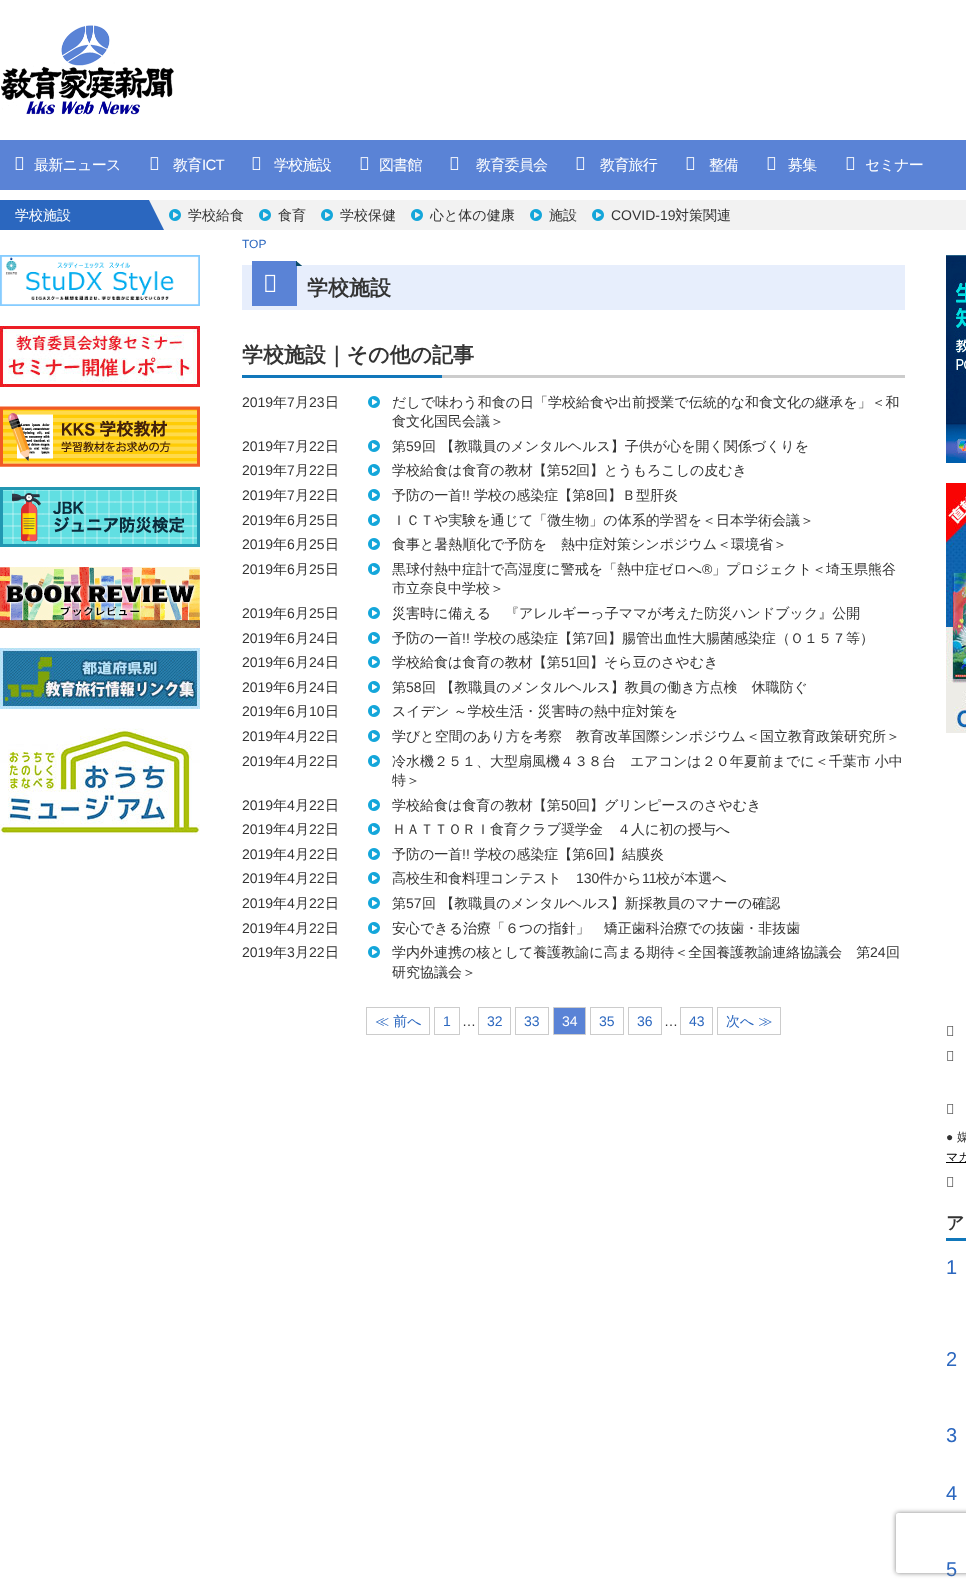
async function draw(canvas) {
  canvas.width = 966
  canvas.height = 1587
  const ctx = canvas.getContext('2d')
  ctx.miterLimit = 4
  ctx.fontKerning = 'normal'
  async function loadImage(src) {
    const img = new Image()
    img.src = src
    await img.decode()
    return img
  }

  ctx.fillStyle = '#fff'
  ctx.fillRect(0, 0, 966, 1587)
  ctx.drawImage(await loadImage('image0.png'), 1, 25, 173, 90)
  ctx.fillStyle = '#5a83d6'
  ctx.fillRect(0, 140, 966, 50)
  ctx.drawImage(await loadImage('image1.png'), 15, 157, 9, 13)
  ctx.letterSpacing = '-0.75px'
  ctx.font = '500 15px WenQuanYi Zen Hei'
  ctx.fillStyle = '#fff'
  ctx.fillText('最新ニュース', 34, 170)
  ctx.drawImage(await loadImage('image1.png'), 150, 157, 9, 13)
  ctx.fillText('教育', 173, 170)
  ctx.font = '15px Liberation Sans'
  ctx.fillText('ICT', 202, 170)
  ctx.drawImage(await loadImage('image1.png'), 252, 157, 9, 13)
  ctx.font = '500 15px WenQuanYi Zen Hei'
  ctx.fillText('学校施設', 274, 170)
  ctx.drawImage(await loadImage('image1.png'), 360, 157, 9, 13)
  ctx.fillText('図書館', 379, 170)
  ctx.drawImage(await loadImage('image1.png'), 450, 157, 9, 13)
  ctx.fillText('教育委員会', 476, 170)
  ctx.drawImage(await loadImage('image1.png'), 576, 157, 9, 13)
  ctx.fillText('教育旅行', 600, 170)
  ctx.drawImage(await loadImage('image1.png'), 686, 157, 9, 13)
  ctx.fillText('整備', 709, 170)
  ctx.drawImage(await loadImage('image1.png'), 767, 157, 9, 13)
  ctx.fillText('募集', 788, 170)
  ctx.drawImage(await loadImage('image1.png'), 846, 157, 9, 13)
  ctx.fillText('セミナー', 865, 170)
  ctx.fillStyle = '#f2f2f2'
  ctx.fillRect(149, 200, 817, 30)
  ctx.fillStyle = '#2b67bf'
  ctx.beginPath()
  ctx.moveTo(164, 230)
  ctx.lineTo(0, 230)
  ctx.lineTo(0, 200)
  ctx.lineTo(149, 200)
  ctx.closePath()
  ctx.fill()
  ctx.letterSpacing = '0px'
  ctx.font = '500 14px WenQuanYi Zen Hei'
  ctx.fillStyle = '#fff'
  ctx.fillText('学校施設', 15, 220)
  ctx.drawImage(await loadImage('image2.png'), 169, 209, 12, 12)
  ctx.fillStyle = '#333'
  ctx.fillText('学校給食', 188, 220)
  ctx.drawImage(await loadImage('image2.png'), 259, 209, 12, 12)
  ctx.fillText('食育', 278, 220)
  ctx.drawImage(await loadImage('image2.png'), 321, 209, 12, 12)
  ctx.fillText('学校保健', 340, 220)
  ctx.drawImage(await loadImage('image2.png'), 411, 209, 12, 12)
  ctx.fillText('心と体の健康', 430, 220)
  ctx.drawImage(await loadImage('image2.png'), 530, 209, 12, 12)
  ctx.fillText('施設', 549, 220)
  ctx.drawImage(await loadImage('image2.png'), 592, 209, 12, 12)
  ctx.font = '14px Liberation Sans'
  ctx.fillText('COVID-19', 611, 220)
  ctx.font = '500 14px WenQuanYi Zen Hei'
  ctx.fillText('対策関連', 675, 220)
  ctx.drawImage(await loadImage('image3.png'), 0, 255, 200, 51)
  ctx.drawImage(await loadImage('image4.png'), 0, 326, 200, 61)
  ctx.drawImage(await loadImage('image5.png'), 0, 406, 200, 61)
  ctx.drawImage(await loadImage('image6.png'), 0, 487, 200, 60)
  ctx.drawImage(await loadImage('image7.png'), 0, 567, 200, 61)
  ctx.drawImage(await loadImage('image8.png'), 0, 648, 200, 61)
  ctx.drawImage(await loadImage('image9.png'), 0, 728, 200, 107)
  ctx.font = '12px Liberation Sans'
  ctx.fillStyle = '#2b67bf'
  ctx.fillText('TOP', 242, 248)
  ctx.fillStyle = '#e7eefc'
  ctx.fillRect(242, 265, 663, 45)
  ctx.drawImage(await loadImage('image10.png'), 252, 261, 50, 45)
  ctx.drawImage(await loadImage('image11.png'), 265, 274, 11, 18)
  ctx.font = 'bold 21px WenQuanYi Zen Hei'
  ctx.fillStyle = '#333'
  ctx.fillText('学校施設', 307, 295)
  ctx.fillStyle = '#ccc'
  ctx.fillRect(442, 375, 463, 3)
  ctx.fillStyle = '#333'
  ctx.fillText('学校施設｜その他の記事', 242, 362)
  ctx.fillStyle = '#1177ba'
  ctx.fillRect(242, 375, 200, 3)
  ctx.font = '14px Liberation Sans'
  ctx.fillStyle = '#333'
  ctx.fillText('2019', 242, 407)
  ctx.font = '500 14px WenQuanYi Zen Hei'
  ctx.fillText('年', 273, 407)
  ctx.font = '14px Liberation Sans'
  ctx.fillText('7', 287, 407)
  ctx.font = '500 14px WenQuanYi Zen Hei'
  ctx.fillText('月', 295, 407)
  ctx.font = '14px Liberation Sans'
  ctx.fillText('23', 309, 407)
  ctx.font = '500 14px WenQuanYi Zen Hei'
  ctx.fillText('日', 325, 407)
  ctx.drawImage(await loadImage('image12.png'), 368, 396, 12, 12)
  ctx.fillText('だしで味わう和食の日「学校給食や出前授業で伝統的な和食文化の継承を」＜和', 392, 407)
  ctx.fillText('食文化国民会議＞', 392, 426)
  ctx.font = '14px Liberation Sans'
  ctx.fillText('2019', 242, 451)
  ctx.font = '500 14px WenQuanYi Zen Hei'
  ctx.fillText('年', 273, 451)
  ctx.font = '14px Liberation Sans'
  ctx.fillText('7', 287, 451)
  ctx.font = '500 14px WenQuanYi Zen Hei'
  ctx.fillText('月', 295, 451)
  ctx.font = '14px Liberation Sans'
  ctx.fillText('22', 309, 451)
  ctx.font = '500 14px WenQuanYi Zen Hei'
  ctx.fillText('日', 325, 451)
  ctx.drawImage(await loadImage('image12.png'), 368, 440, 12, 12)
  ctx.fillText('第', 392, 451)
  ctx.font = '14px Liberation Sans'
  ctx.fillText('59', 406, 451)
  ctx.font = '500 14px WenQuanYi Zen Hei'
  ctx.fillText('回 【教職員のメンタルヘルス】子供が心を開く関係づくりを', 422, 451)
  ctx.font = '14px Liberation Sans'
  ctx.fillText('2019', 242, 475)
  ctx.font = '500 14px WenQuanYi Zen Hei'
  ctx.fillText('年', 273, 475)
  ctx.font = '14px Liberation Sans'
  ctx.fillText('7', 287, 475)
  ctx.font = '500 14px WenQuanYi Zen Hei'
  ctx.fillText('月', 295, 475)
  ctx.font = '14px Liberation Sans'
  ctx.fillText('22', 309, 475)
  ctx.font = '500 14px WenQuanYi Zen Hei'
  ctx.fillText('日', 325, 475)
  ctx.drawImage(await loadImage('image12.png'), 368, 464, 12, 12)
  ctx.fillText('学校給食は食育の教材【第', 392, 475)
  ctx.font = '14px Liberation Sans'
  ctx.fillText('52', 561, 475)
  ctx.font = '500 14px WenQuanYi Zen Hei'
  ctx.fillText('回】とうもろこしの皮むき', 576, 475)
  ctx.font = '14px Liberation Sans'
  ctx.fillText('2019', 242, 500)
  ctx.font = '500 14px WenQuanYi Zen Hei'
  ctx.fillText('年', 273, 500)
  ctx.font = '14px Liberation Sans'
  ctx.fillText('7', 287, 500)
  ctx.font = '500 14px WenQuanYi Zen Hei'
  ctx.fillText('月', 295, 500)
  ctx.font = '14px Liberation Sans'
  ctx.fillText('22', 309, 500)
  ctx.font = '500 14px WenQuanYi Zen Hei'
  ctx.fillText('日', 325, 500)
  ctx.drawImage(await loadImage('image12.png'), 368, 489, 12, 12)
  ctx.fillText('予防の一首', 392, 500)
  ctx.font = '14px Liberation Sans'
  ctx.fillText('!!', 462, 500)
  ctx.font = '500 14px WenQuanYi Zen Hei'
  ctx.fillText('学校の感染症【第', 474, 500)
  ctx.font = '14px Liberation Sans'
  ctx.fillText('8', 586, 500)
  ctx.font = '500 14px WenQuanYi Zen Hei'
  ctx.fillText('回】Ｂ型肝炎', 594, 500)
  ctx.font = '14px Liberation Sans'
  ctx.fillText('2019', 242, 525)
  ctx.font = '500 14px WenQuanYi Zen Hei'
  ctx.fillText('年', 273, 525)
  ctx.font = '14px Liberation Sans'
  ctx.fillText('6', 287, 525)
  ctx.font = '500 14px WenQuanYi Zen Hei'
  ctx.fillText('月', 295, 525)
  ctx.font = '14px Liberation Sans'
  ctx.fillText('25', 309, 525)
  ctx.font = '500 14px WenQuanYi Zen Hei'
  ctx.fillText('日', 325, 525)
  ctx.drawImage(await loadImage('image12.png'), 368, 514, 12, 12)
  ctx.fillText('ＩＣＴや実験を通じて「微生物」の体系的学習を＜日本学術会議＞', 392, 525)
  ctx.font = '14px Liberation Sans'
  ctx.fillText('2019', 242, 549)
  ctx.font = '500 14px WenQuanYi Zen Hei'
  ctx.fillText('年', 273, 549)
  ctx.font = '14px Liberation Sans'
  ctx.fillText('6', 287, 549)
  ctx.font = '500 14px WenQuanYi Zen Hei'
  ctx.fillText('月', 295, 549)
  ctx.font = '14px Liberation Sans'
  ctx.fillText('25', 309, 549)
  ctx.font = '500 14px WenQuanYi Zen Hei'
  ctx.fillText('日', 325, 549)
  ctx.drawImage(await loadImage('image12.png'), 368, 538, 12, 12)
  ctx.fillText('食事と暑熱順化で予防を　熱中症対策シンポジウム＜環境省＞', 392, 549)
  ctx.font = '14px Liberation Sans'
  ctx.fillText('2019', 242, 574)
  ctx.font = '500 14px WenQuanYi Zen Hei'
  ctx.fillText('年', 273, 574)
  ctx.font = '14px Liberation Sans'
  ctx.fillText('6', 287, 574)
  ctx.font = '500 14px WenQuanYi Zen Hei'
  ctx.fillText('月', 295, 574)
  ctx.font = '14px Liberation Sans'
  ctx.fillText('25', 309, 574)
  ctx.font = '500 14px WenQuanYi Zen Hei'
  ctx.fillText('日', 325, 574)
  ctx.drawImage(await loadImage('image12.png'), 368, 563, 12, 12)
  ctx.fillText('黒球付熱中症計で高湿度に警戒を「熱中症ゼロへ', 392, 574)
  ctx.font = '14px Liberation Sans'
  ctx.fillText('®', 702, 574)
  ctx.font = '500 14px WenQuanYi Zen Hei'
  ctx.fillText('」プロジェクト＜埼玉県熊谷', 712, 574)
  ctx.fillText('市立奈良中学校＞', 392, 593)
  ctx.font = '14px Liberation Sans'
  ctx.fillText('2019', 242, 618)
  ctx.font = '500 14px WenQuanYi Zen Hei'
  ctx.fillText('年', 273, 618)
  ctx.font = '14px Liberation Sans'
  ctx.fillText('6', 287, 618)
  ctx.font = '500 14px WenQuanYi Zen Hei'
  ctx.fillText('月', 295, 618)
  ctx.font = '14px Liberation Sans'
  ctx.fillText('25', 309, 618)
  ctx.font = '500 14px WenQuanYi Zen Hei'
  ctx.fillText('日', 325, 618)
  ctx.drawImage(await loadImage('image12.png'), 368, 607, 12, 12)
  ctx.fillText('災害時に備える　『アレルギーっ子ママが考えた防災ハンドブック』公開', 392, 618)
  ctx.font = '14px Liberation Sans'
  ctx.fillText('2019', 242, 643)
  ctx.font = '500 14px WenQuanYi Zen Hei'
  ctx.fillText('年', 273, 643)
  ctx.font = '14px Liberation Sans'
  ctx.fillText('6', 287, 643)
  ctx.font = '500 14px WenQuanYi Zen Hei'
  ctx.fillText('月', 295, 643)
  ctx.font = '14px Liberation Sans'
  ctx.fillText('24', 309, 643)
  ctx.font = '500 14px WenQuanYi Zen Hei'
  ctx.fillText('日', 325, 643)
  ctx.drawImage(await loadImage('image12.png'), 368, 632, 12, 12)
  ctx.fillText('予防の一首', 392, 643)
  ctx.font = '14px Liberation Sans'
  ctx.fillText('!!', 462, 643)
  ctx.font = '500 14px WenQuanYi Zen Hei'
  ctx.fillText('学校の感染症【第', 474, 643)
  ctx.font = '14px Liberation Sans'
  ctx.fillText('7', 586, 643)
  ctx.font = '500 14px WenQuanYi Zen Hei'
  ctx.fillText('回】腸管出血性大腸菌感染症（Ｏ１５７等）', 594, 643)
  ctx.font = '14px Liberation Sans'
  ctx.fillText('2019', 242, 667)
  ctx.font = '500 14px WenQuanYi Zen Hei'
  ctx.fillText('年', 273, 667)
  ctx.font = '14px Liberation Sans'
  ctx.fillText('6', 287, 667)
  ctx.font = '500 14px WenQuanYi Zen Hei'
  ctx.fillText('月', 295, 667)
  ctx.font = '14px Liberation Sans'
  ctx.fillText('24', 309, 667)
  ctx.font = '500 14px WenQuanYi Zen Hei'
  ctx.fillText('日', 325, 667)
  ctx.drawImage(await loadImage('image12.png'), 368, 656, 12, 12)
  ctx.fillText('学校給食は食育の教材【第', 392, 667)
  ctx.font = '14px Liberation Sans'
  ctx.fillText('51', 561, 667)
  ctx.font = '500 14px WenQuanYi Zen Hei'
  ctx.fillText('回】そら豆のさやむき', 576, 667)
  ctx.font = '14px Liberation Sans'
  ctx.fillText('2019', 242, 692)
  ctx.font = '500 14px WenQuanYi Zen Hei'
  ctx.fillText('年', 273, 692)
  ctx.font = '14px Liberation Sans'
  ctx.fillText('6', 287, 692)
  ctx.font = '500 14px WenQuanYi Zen Hei'
  ctx.fillText('月', 295, 692)
  ctx.font = '14px Liberation Sans'
  ctx.fillText('24', 309, 692)
  ctx.font = '500 14px WenQuanYi Zen Hei'
  ctx.fillText('日', 325, 692)
  ctx.drawImage(await loadImage('image12.png'), 368, 681, 12, 12)
  ctx.fillText('第', 392, 692)
  ctx.font = '14px Liberation Sans'
  ctx.fillText('58', 406, 692)
  ctx.font = '500 14px WenQuanYi Zen Hei'
  ctx.fillText('回 【教職員のメンタルヘルス】教員の働き方点検　休職防ぐ', 422, 692)
  ctx.font = '14px Liberation Sans'
  ctx.fillText('2019', 242, 716)
  ctx.font = '500 14px WenQuanYi Zen Hei'
  ctx.fillText('年', 273, 716)
  ctx.font = '14px Liberation Sans'
  ctx.fillText('6', 287, 716)
  ctx.font = '500 14px WenQuanYi Zen Hei'
  ctx.fillText('月', 295, 716)
  ctx.font = '14px Liberation Sans'
  ctx.fillText('10', 309, 716)
  ctx.font = '500 14px WenQuanYi Zen Hei'
  ctx.fillText('日', 325, 716)
  ctx.drawImage(await loadImage('image12.png'), 368, 705, 12, 12)
  ctx.fillText('スイデン ～学校生活・災害時の熱中症対策を', 392, 716)
  ctx.font = '14px Liberation Sans'
  ctx.fillText('2019', 242, 741)
  ctx.font = '500 14px WenQuanYi Zen Hei'
  ctx.fillText('年', 273, 741)
  ctx.font = '14px Liberation Sans'
  ctx.fillText('4', 287, 741)
  ctx.font = '500 14px WenQuanYi Zen Hei'
  ctx.fillText('月', 295, 741)
  ctx.font = '14px Liberation Sans'
  ctx.fillText('22', 309, 741)
  ctx.font = '500 14px WenQuanYi Zen Hei'
  ctx.fillText('日', 325, 741)
  ctx.drawImage(await loadImage('image12.png'), 368, 730, 12, 12)
  ctx.fillText('学びと空間のあり方を考察　教育改革国際シンポジウム＜国立教育政策研究所＞', 392, 741)
  ctx.font = '14px Liberation Sans'
  ctx.fillText('2019', 242, 766)
  ctx.font = '500 14px WenQuanYi Zen Hei'
  ctx.fillText('年', 273, 766)
  ctx.font = '14px Liberation Sans'
  ctx.fillText('4', 287, 766)
  ctx.font = '500 14px WenQuanYi Zen Hei'
  ctx.fillText('月', 295, 766)
  ctx.font = '14px Liberation Sans'
  ctx.fillText('22', 309, 766)
  ctx.font = '500 14px WenQuanYi Zen Hei'
  ctx.fillText('日', 325, 766)
  ctx.drawImage(await loadImage('image12.png'), 368, 755, 12, 12)
  ctx.fillText('冷水機２５１、大型扇風機４３８台　エアコンは２０年夏前までに＜千葉市 小中', 392, 766)
  ctx.fillText('特＞', 392, 785)
  ctx.font = '14px Liberation Sans'
  ctx.fillText('2019', 242, 810)
  ctx.font = '500 14px WenQuanYi Zen Hei'
  ctx.fillText('年', 273, 810)
  ctx.font = '14px Liberation Sans'
  ctx.fillText('4', 287, 810)
  ctx.font = '500 14px WenQuanYi Zen Hei'
  ctx.fillText('月', 295, 810)
  ctx.font = '14px Liberation Sans'
  ctx.fillText('22', 309, 810)
  ctx.font = '500 14px WenQuanYi Zen Hei'
  ctx.fillText('日', 325, 810)
  ctx.drawImage(await loadImage('image12.png'), 368, 799, 12, 12)
  ctx.fillText('学校給食は食育の教材【第', 392, 810)
  ctx.font = '14px Liberation Sans'
  ctx.fillText('50', 561, 810)
  ctx.font = '500 14px WenQuanYi Zen Hei'
  ctx.fillText('回】グリンピースのさやむき', 576, 810)
  ctx.font = '14px Liberation Sans'
  ctx.fillText('2019', 242, 834)
  ctx.font = '500 14px WenQuanYi Zen Hei'
  ctx.fillText('年', 273, 834)
  ctx.font = '14px Liberation Sans'
  ctx.fillText('4', 287, 834)
  ctx.font = '500 14px WenQuanYi Zen Hei'
  ctx.fillText('月', 295, 834)
  ctx.font = '14px Liberation Sans'
  ctx.fillText('22', 309, 834)
  ctx.font = '500 14px WenQuanYi Zen Hei'
  ctx.fillText('日', 325, 834)
  ctx.drawImage(await loadImage('image12.png'), 368, 823, 12, 12)
  ctx.fillText('ＨＡＴＴＯＲＩ食育クラブ奨学金　４人に初の授与へ', 392, 834)
  ctx.font = '14px Liberation Sans'
  ctx.fillText('2019', 242, 859)
  ctx.font = '500 14px WenQuanYi Zen Hei'
  ctx.fillText('年', 273, 859)
  ctx.font = '14px Liberation Sans'
  ctx.fillText('4', 287, 859)
  ctx.font = '500 14px WenQuanYi Zen Hei'
  ctx.fillText('月', 295, 859)
  ctx.font = '14px Liberation Sans'
  ctx.fillText('22', 309, 859)
  ctx.font = '500 14px WenQuanYi Zen Hei'
  ctx.fillText('日', 325, 859)
  ctx.drawImage(await loadImage('image12.png'), 368, 848, 12, 12)
  ctx.fillText('予防の一首', 392, 859)
  ctx.font = '14px Liberation Sans'
  ctx.fillText('!!', 462, 859)
  ctx.font = '500 14px WenQuanYi Zen Hei'
  ctx.fillText('学校の感染症【第', 474, 859)
  ctx.font = '14px Liberation Sans'
  ctx.fillText('6', 586, 859)
  ctx.font = '500 14px WenQuanYi Zen Hei'
  ctx.fillText('回】結膜炎', 594, 859)
  ctx.font = '14px Liberation Sans'
  ctx.fillText('2019', 242, 883)
  ctx.font = '500 14px WenQuanYi Zen Hei'
  ctx.fillText('年', 273, 883)
  ctx.font = '14px Liberation Sans'
  ctx.fillText('4', 287, 883)
  ctx.font = '500 14px WenQuanYi Zen Hei'
  ctx.fillText('月', 295, 883)
  ctx.font = '14px Liberation Sans'
  ctx.fillText('22', 309, 883)
  ctx.font = '500 14px WenQuanYi Zen Hei'
  ctx.fillText('日', 325, 883)
  ctx.drawImage(await loadImage('image12.png'), 368, 872, 12, 12)
  ctx.fillText('高校生和食料理コンテスト', 392, 883)
  ctx.font = '14px Liberation Sans'
  ctx.fillText('130', 576, 883)
  ctx.font = '500 14px WenQuanYi Zen Hei'
  ctx.fillText('件から', 599, 883)
  ctx.font = '14px Liberation Sans'
  ctx.fillText('11', 642, 883)
  ctx.font = '500 14px WenQuanYi Zen Hei'
  ctx.fillText('校が本選へ', 656, 883)
  ctx.font = '14px Liberation Sans'
  ctx.fillText('2019', 242, 908)
  ctx.font = '500 14px WenQuanYi Zen Hei'
  ctx.fillText('年', 273, 908)
  ctx.font = '14px Liberation Sans'
  ctx.fillText('4', 287, 908)
  ctx.font = '500 14px WenQuanYi Zen Hei'
  ctx.fillText('月', 295, 908)
  ctx.font = '14px Liberation Sans'
  ctx.fillText('22', 309, 908)
  ctx.font = '500 14px WenQuanYi Zen Hei'
  ctx.fillText('日', 325, 908)
  ctx.drawImage(await loadImage('image12.png'), 368, 897, 12, 12)
  ctx.fillText('第', 392, 908)
  ctx.font = '14px Liberation Sans'
  ctx.fillText('57', 406, 908)
  ctx.font = '500 14px WenQuanYi Zen Hei'
  ctx.fillText('回 【教職員のメンタルヘルス】新採教員のマナーの確認', 422, 908)
  ctx.font = '14px Liberation Sans'
  ctx.fillText('2019', 242, 933)
  ctx.font = '500 14px WenQuanYi Zen Hei'
  ctx.fillText('年', 273, 933)
  ctx.font = '14px Liberation Sans'
  ctx.fillText('4', 287, 933)
  ctx.font = '500 14px WenQuanYi Zen Hei'
  ctx.fillText('月', 295, 933)
  ctx.font = '14px Liberation Sans'
  ctx.fillText('22', 309, 933)
  ctx.font = '500 14px WenQuanYi Zen Hei'
  ctx.fillText('日', 325, 933)
  ctx.drawImage(await loadImage('image12.png'), 368, 922, 12, 12)
  ctx.fillText('安心できる治療「６つの指針」　矯正歯科治療での抜歯・非抜歯', 392, 933)
  ctx.font = '14px Liberation Sans'
  ctx.fillText('2019', 242, 957)
  ctx.font = '500 14px WenQuanYi Zen Hei'
  ctx.fillText('年', 273, 957)
  ctx.font = '14px Liberation Sans'
  ctx.fillText('3', 287, 957)
  ctx.font = '500 14px WenQuanYi Zen Hei'
  ctx.fillText('月', 295, 957)
  ctx.font = '14px Liberation Sans'
  ctx.fillText('22', 309, 957)
  ctx.font = '500 14px WenQuanYi Zen Hei'
  ctx.fillText('日', 325, 957)
  ctx.drawImage(await loadImage('image12.png'), 368, 946, 12, 12)
  ctx.fillText('学内外連携の核として養護教諭に高まる期待＜全国養護教諭連絡協議会　第', 392, 957)
  ctx.font = '14px Liberation Sans'
  ctx.fillText('24', 870, 957)
  ctx.font = '500 14px WenQuanYi Zen Hei'
  ctx.fillText('回', 886, 957)
  ctx.fillText('研究協議会＞', 392, 977)
  ctx.strokeStyle = '#ccc'
  ctx.strokeRect(366.5, 1007.5, 63, 27)
  ctx.fillStyle = '#2b67bf'
  ctx.fillText('≪ 前へ', 375, 1026)
  ctx.strokeRect(434.5, 1007.5, 25, 27)
  ctx.font = '14px Liberation Sans'
  ctx.fillText('1', 443, 1026)
  ctx.fillStyle = '#333'
  ctx.fillText('…', 462, 1026)
  ctx.strokeRect(478.5, 1007.5, 32, 27)
  ctx.fillStyle = '#2b67bf'
  ctx.fillText('32', 487, 1026)
  ctx.strokeRect(515.5, 1007.5, 33, 27)
  ctx.fillText('33', 524, 1026)
  ctx.fillStyle = '#5a83d6'
  ctx.beginPath()
  ctx.rect(553.5, 1007.5, 32, 27)
  ctx.fill()
  ctx.stroke()
  ctx.fillStyle = '#fff'
  ctx.fillText('34', 562, 1026)
  ctx.strokeRect(590.5, 1007.5, 33, 27)
  ctx.fillStyle = '#2b67bf'
  ctx.fillText('35', 599, 1026)
  ctx.strokeRect(628.5, 1007.5, 33, 27)
  ctx.fillText('36', 637, 1026)
  ctx.fillStyle = '#333'
  ctx.fillText('…', 664, 1026)
  ctx.strokeRect(680.5, 1007.5, 32, 27)
  ctx.fillStyle = '#2b67bf'
  ctx.fillText('43', 689, 1026)
  ctx.strokeRect(717.5, 1007.5, 63, 27)
  ctx.font = '500 14px WenQuanYi Zen Hei'
  ctx.fillText('次へ ≫', 726, 1026)
  ctx.drawImage(await loadImage('image13.png'), 946, 255, 20, 208)
  ctx.drawImage(await loadImage('image14.png'), 946, 483, 20, 250)
  ctx.drawImage(await loadImage('image15.png'), 947, 1026, 7, 10)
  ctx.drawImage(await loadImage('image15.png'), 947, 1051, 7, 10)
  ctx.drawImage(await loadImage('image15.png'), 947, 1104, 7, 10)
  ctx.font = '12px Liberation Sans'
  ctx.fillStyle = '#333'
  ctx.fillText('●', 946, 1141)
  ctx.font = '500 12px WenQuanYi Zen Hei'
  ctx.fillText('媒', 957, 1141)
  ctx.fillStyle = '#000'
  ctx.fillRect(946, 1162, 20, 1)
  ctx.fillText('マガ', 946, 1161)
  ctx.drawImage(await loadImage('image15.png'), 947, 1177, 7, 10)
  ctx.font = 'bold 18px WenQuanYi Zen Hei'
  ctx.fillStyle = '#333'
  ctx.fillText('ア', 946, 1229)
  ctx.fillStyle = '#1177ba'
  ctx.fillRect(946, 1238, 20, 3)
  ctx.font = '20px Liberation Sans'
  ctx.fillStyle = '#2b67bf'
  ctx.fillText('1', 946, 1274)
  ctx.fillText('2', 946, 1366)
  ctx.fillText('3', 946, 1442)
  ctx.fillText('4', 946, 1500)
  ctx.fillText('5', 946, 1576)
  ctx.save()
  ctx.beginPath()
  ctx.moveTo(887, 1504)
  ctx.lineTo(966, 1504)
  ctx.lineTo(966, 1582)
  ctx.lineTo(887, 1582)
  ctx.closePath()
  ctx.moveTo(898, 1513)
  ctx.lineTo(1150, 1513)
  ctx.bezierCurveTo(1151, 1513, 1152, 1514, 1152, 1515)
  ctx.lineTo(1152, 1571)
  ctx.bezierCurveTo(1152, 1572, 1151, 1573, 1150, 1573)
  ctx.lineTo(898, 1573)
  ctx.bezierCurveTo(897, 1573, 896, 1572, 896, 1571)
  ctx.lineTo(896, 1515)
  ctx.bezierCurveTo(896, 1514, 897, 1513, 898, 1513)
  ctx.closePath()
  ctx.clip('evenodd')
  ctx.fillStyle = '#808080'
  ctx.filter = 'blur(2.5px)'
  ctx.beginPath()
  ctx.roundRect(896, 1513, 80, 60, 2)
  ctx.fill()
  ctx.filter = 'none'
  ctx.restore()
}

draw(document.querySelector('canvas'))
